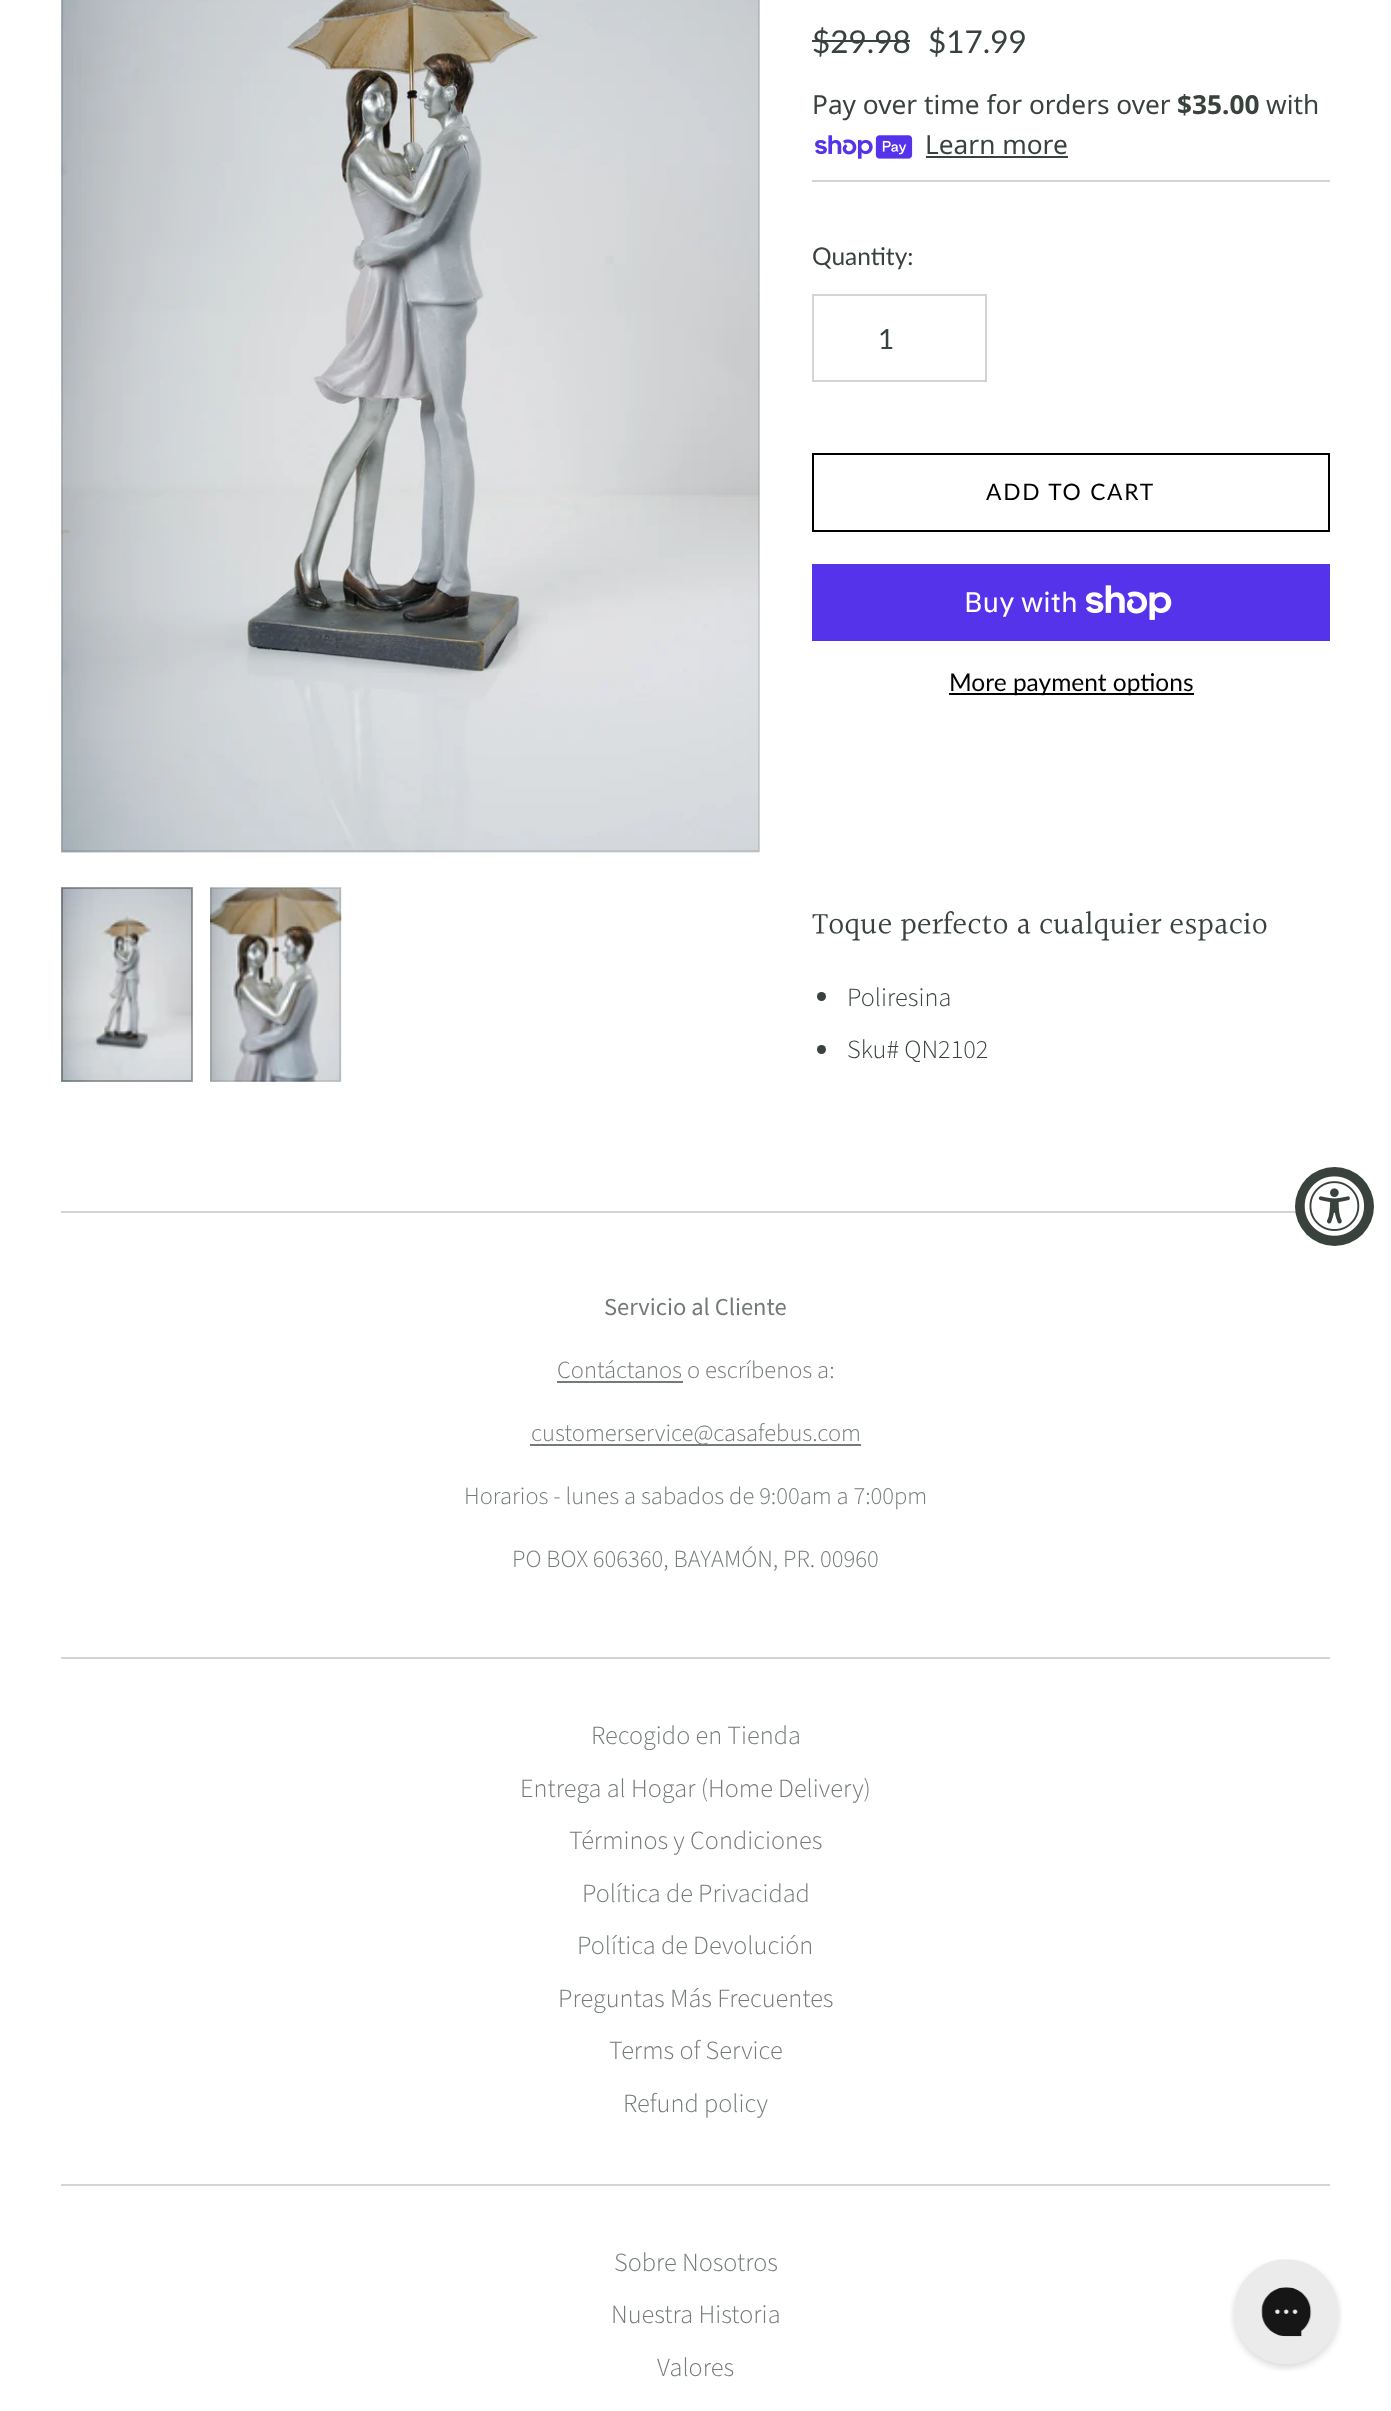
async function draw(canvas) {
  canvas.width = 1391
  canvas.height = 2411
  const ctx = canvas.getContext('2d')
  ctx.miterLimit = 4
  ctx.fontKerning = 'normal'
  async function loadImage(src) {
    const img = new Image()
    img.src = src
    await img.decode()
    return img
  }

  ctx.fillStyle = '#fff'
  ctx.fillRect(0, 0, 1391, 2411)
  ctx.drawImage(await loadImage('image0.png'), 61, 0, 699, 853)
  ctx.strokeStyle = '#0000001a'
  ctx.lineWidth = 2
  ctx.strokeRect(62, -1, 697, 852)
  ctx.drawImage(await loadImage('image1.png'), 61, 887, 132, 195)
  ctx.strokeStyle = '#0000004d'
  ctx.strokeRect(62, 888, 130, 193)
  ctx.drawImage(await loadImage('image2.png'), 210, 887, 132, 195)
  ctx.strokeStyle = '#0000001a'
  ctx.strokeRect(211, 888, 129, 193)
  ctx.fillStyle = '#d4d4d4'
  ctx.fillRect(812, 180, 518, 2)
  ctx.font = '31.5px Lato'
  ctx.fillStyle = '#39423d'
  ctx.fillText('$29.98', 812, 53)
  ctx.fillRect(812, 40, 98, 2)
  ctx.fillText('$17.99', 928, 53)
  ctx.font = '26.25px Noto Sans'
  ctx.fillText('Pay over time for orders over', 812, 114)
  ctx.font = 'bold 26.25px Noto Sans'
  ctx.fillText('$35.00', 1177, 114)
  ctx.font = '26.25px Noto Sans'
  ctx.fillText('with', 1266, 114)
  ctx.drawImage(await loadImage('image3.png'), 815, 135, 98, 24)
  ctx.fillText('Learn more', 925, 154)
  ctx.fillRect(926, 156, 142, 2)
  ctx.font = '24.5px Lato'
  ctx.fillText('Quantity:', 812, 265)
  ctx.strokeStyle = '#d4d4d4'
  ctx.strokeRect(813, 295, 173, 86)
  ctx.font = '28px Lato'
  ctx.fillText('1', 878, 349)
  ctx.strokeStyle = '#000'
  ctx.strokeRect(813, 454, 516, 77)
  ctx.letterSpacing = '1.75px'
  ctx.font = '22.75px Lato'
  ctx.fillStyle = '#000'
  ctx.fillText('ADD TO CART', 986, 500)
  ctx.fillStyle = '#5433eb'
  ctx.fillRect(812, 564, 518, 77)
  ctx.letterSpacing = '0px'
  ctx.font = '28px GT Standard'
  ctx.fillStyle = '#fff'
  ctx.fillText('Buy with', 964, 612)
  ctx.drawImage(await loadImage('image4.png'), 1086, 585, 86, 35)
  ctx.fillStyle = '#000'
  ctx.fillRect(949, 693, 245, 2)
  ctx.font = '24.5px Lato'
  ctx.fillText('More payment options', 949, 691)
  ctx.font = '31.5px Halant'
  ctx.fillStyle = '#39423d'
  ctx.fillText('Toque perfecto a cualquier espacio', 812, 935)
  ctx.beginPath()
  ctx.arc(821.5, 996.5, 4.5, 0, 2 * Math.PI)
  ctx.fill()
  ctx.font = '300 26.25px Source Sans Pro'
  ctx.fillText('Poliresina', 847, 1006)
  ctx.beginPath()
  ctx.arc(821.5, 1049.5, 4.5, 0, 2 * Math.PI)
  ctx.fill()
  ctx.fillText('Sku# QN2102', 847, 1058)
  ctx.fillStyle = '#d4d4d4'
  ctx.fillRect(61, 1211, 1235, 2)
  ctx.fillStyle = '#39423d'
  ctx.beginPath()
  ctx.arc(1334.5, 1206.5, 39.5, 0, 2 * Math.PI)
  ctx.fill()
  ctx.drawImage(await loadImage('image5.png'), 1304, 1176, 61, 60)
  ctx.font = '24.5px Source Sans Pro'
  ctx.fillStyle = '#747b77'
  ctx.fillText('Servicio al Cliente', 604, 1315)
  ctx.font = '300 24.5px Source Sans Pro'
  ctx.fillText('Contáctanos o escríbenos a:', 557, 1378)
  ctx.fillRect(557, 1381, 126, 2)
  ctx.fillRect(530, 1444, 331, 2)
  ctx.fillText('customerservice@casafebus.com', 531, 1441)
  ctx.fillText('Horarios - lunes a sabados de 9:00am a 7:00pm', 464, 1504)
  ctx.fillText('PO BOX 606360, BAYAMÓN, PR. 00960', 512, 1567)
  ctx.fillStyle = '#d4d4d4'
  ctx.fillRect(61, 1657, 1269, 2)
  ctx.font = '300 26.25px Source Sans Pro'
  ctx.fillStyle = '#747b77'
  ctx.fillText('Recogido en Tienda', 591, 1744)
  ctx.fillText('Entrega al Hogar (Home Delivery)', 520, 1797)
  ctx.fillText('Términos y Condiciones', 569, 1849)
  ctx.fillText('Política de Privacidad', 582, 1902)
  ctx.fillText('Política de Devolución', 577, 1954)
  ctx.fillText('Preguntas Más Frecuentes', 558, 2007)
  ctx.fillText('Terms of Service', 609, 2059)
  ctx.fillText('Refund policy', 623, 2112)
  ctx.fillStyle = '#d4d4d4'
  ctx.fillRect(61, 2184, 1269, 2)
  ctx.fillStyle = '#747b77'
  ctx.fillText('Sobre Nosotros', 614, 2271)
  ctx.fillText('Nuestra Historia', 611, 2323)
  ctx.fillText('Valores', 657, 2376)
  ctx.drawImage(await loadImage('image6.png'), 1230, 2259, 112, 112)
}

draw(document.querySelector('canvas'))
